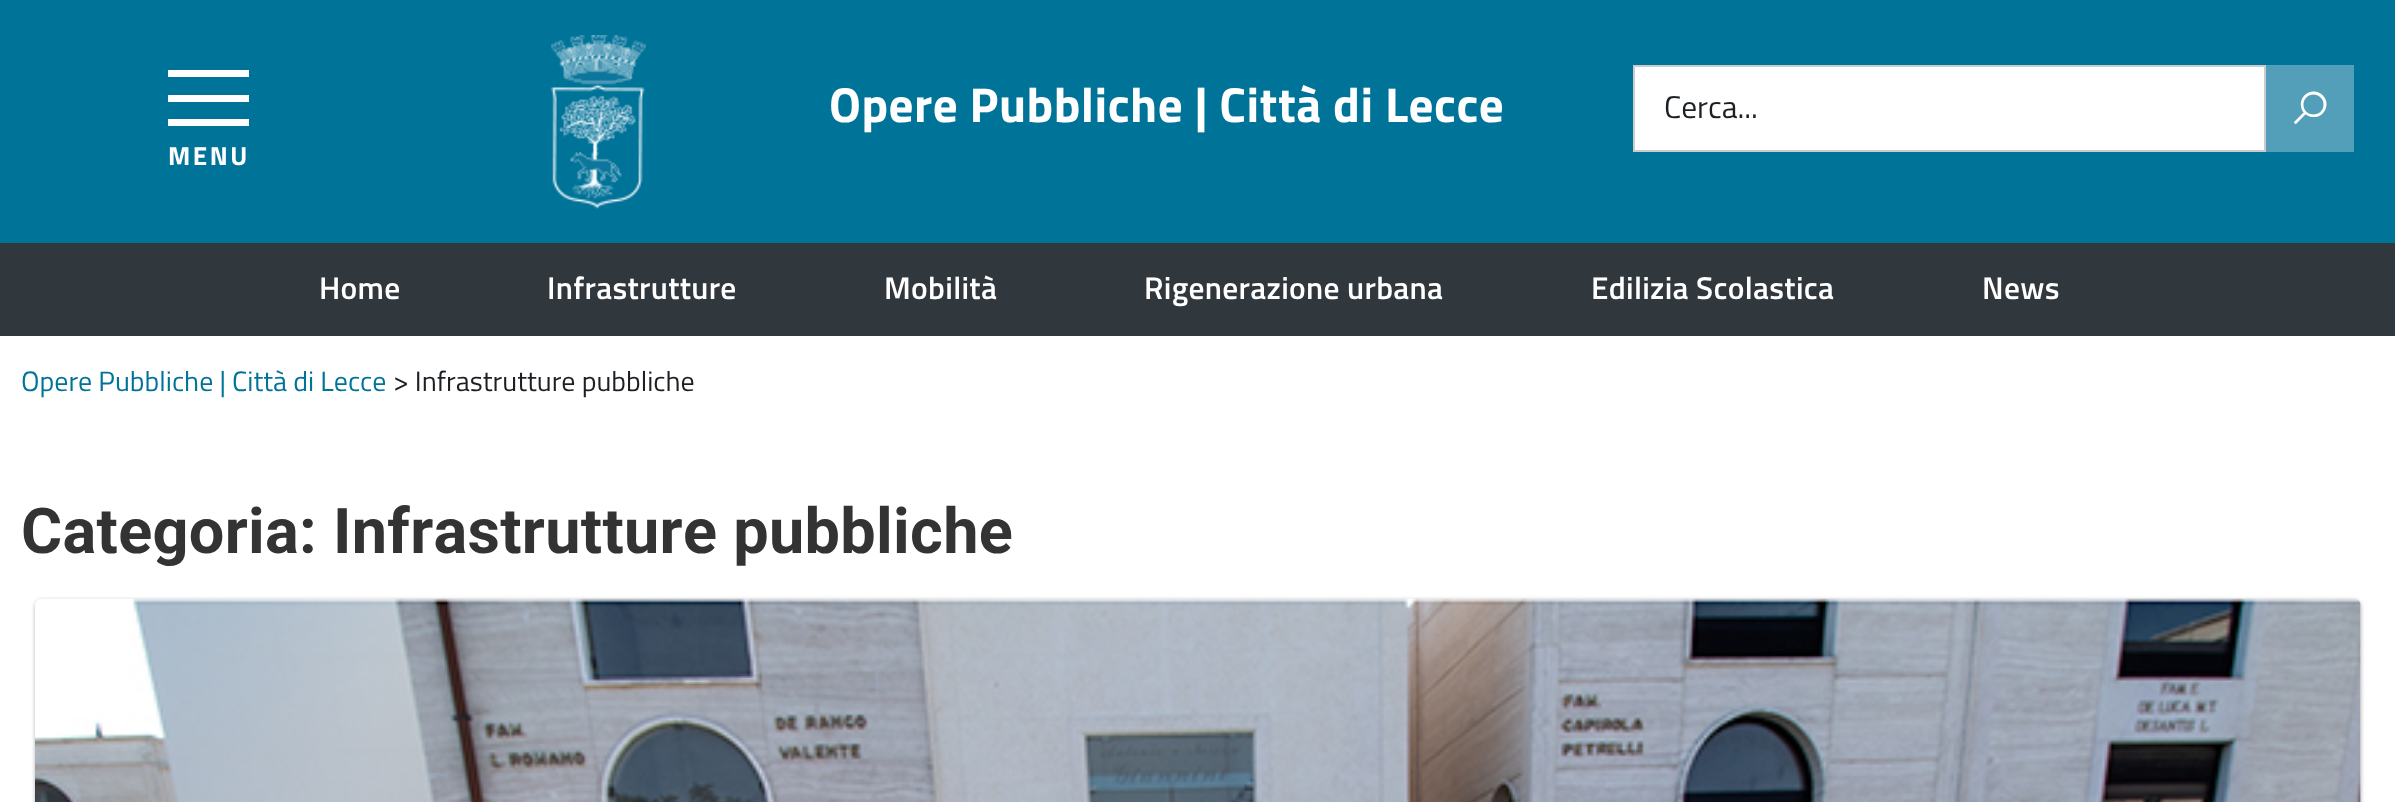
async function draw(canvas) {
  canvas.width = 2395
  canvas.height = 802
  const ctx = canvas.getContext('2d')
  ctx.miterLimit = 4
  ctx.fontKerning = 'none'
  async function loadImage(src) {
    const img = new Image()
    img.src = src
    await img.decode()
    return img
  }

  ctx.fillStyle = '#fff'
  ctx.fillRect(0, 0, 2395, 802)
  ctx.fillStyle = '#007399'
  ctx.fillRect(0, 0, 2395, 243)
  ctx.drawImage(await loadImage('image0.png'), 551, 35, 95, 174)
  ctx.letterSpacing = '0.5px'
  ctx.font = 'bold 49px Titillium Web'
  ctx.fillStyle = '#fff'
  ctx.fillText('Opere Pubbliche | Città di Lecce', 829, 122)
  ctx.beginPath()
  ctx.rect(1634, 66, 631, 85)
  ctx.fill()
  ctx.strokeStyle = '#ccc'
  ctx.lineWidth = 2
  ctx.stroke()
  ctx.fillStyle = '#539eb8'
  ctx.fillRect(2266, 65, 88, 87)
  ctx.letterSpacing = '0px'
  ctx.font = 'bold 31.5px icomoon'
  ctx.fillStyle = '#fff'
  ctx.fillText('🔍', 2294, 122)
  ctx.font = '31.5px Titillium Web'
  ctx.fillStyle = '#1c2024'
  ctx.fillText('Cerca...', 1664, 118)
  ctx.fillStyle = '#fff'
  ctx.fillRect(168, 95, 81, 7)
  ctx.fillRect(168, 70, 81, 7)
  ctx.fillRect(168, 119, 81, 7)
  ctx.letterSpacing = '2.5px'
  ctx.font = 'bold 26px Titillium Web'
  ctx.fillText('MENU', 168, 165)
  ctx.fillStyle = '#30373d'
  ctx.fillRect(0, 243, 2395, 93)
  ctx.letterSpacing = '0.3px'
  ctx.font = '600 31.5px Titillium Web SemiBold'
  ctx.fillStyle = '#fff'
  ctx.fillText('Home', 319, 299)
  ctx.fillText('Infrastrutture', 547, 299)
  ctx.fillText('Mobilità', 884, 299)
  ctx.fillText('Rigenerazione urbana', 1144, 299)
  ctx.fillText('Edilizia Scolastica', 1591, 299)
  ctx.fillText('News', 1982, 299)
  ctx.letterSpacing = '0px'
  ctx.font = '28px Titillium Web'
  ctx.fillStyle = '#007399'
  ctx.fillText('Opere Pubbliche | Città di Lecce', 21, 391)
  ctx.fillStyle = '#1c2024'
  ctx.fillText('> Infrastrutture pubbliche', 393, 391)
  ctx.letterSpacing = '0.3px'
  ctx.font = 'bold 63px Roboto'
  ctx.fillStyle = '#333'
  ctx.fillText('Categoria: Infrastrutture pubbliche', 21, 553)
  ctx.fillStyle = '#32323259'
  ctx.filter = 'blur(2px)'
  ctx.beginPath()
  ctx.roundRect(35, 600, 2326, 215, 7)
  ctx.fill()
  ctx.filter = 'none'
  ctx.fillStyle = '#fff'
  ctx.beginPath()
  ctx.roundRect(35, 599, 2326, 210, 7)
  ctx.fill()
  ctx.drawImage(await loadImage('image1.png'), 35, 598, 2326, 204)
}

draw(document.querySelector('canvas'))
